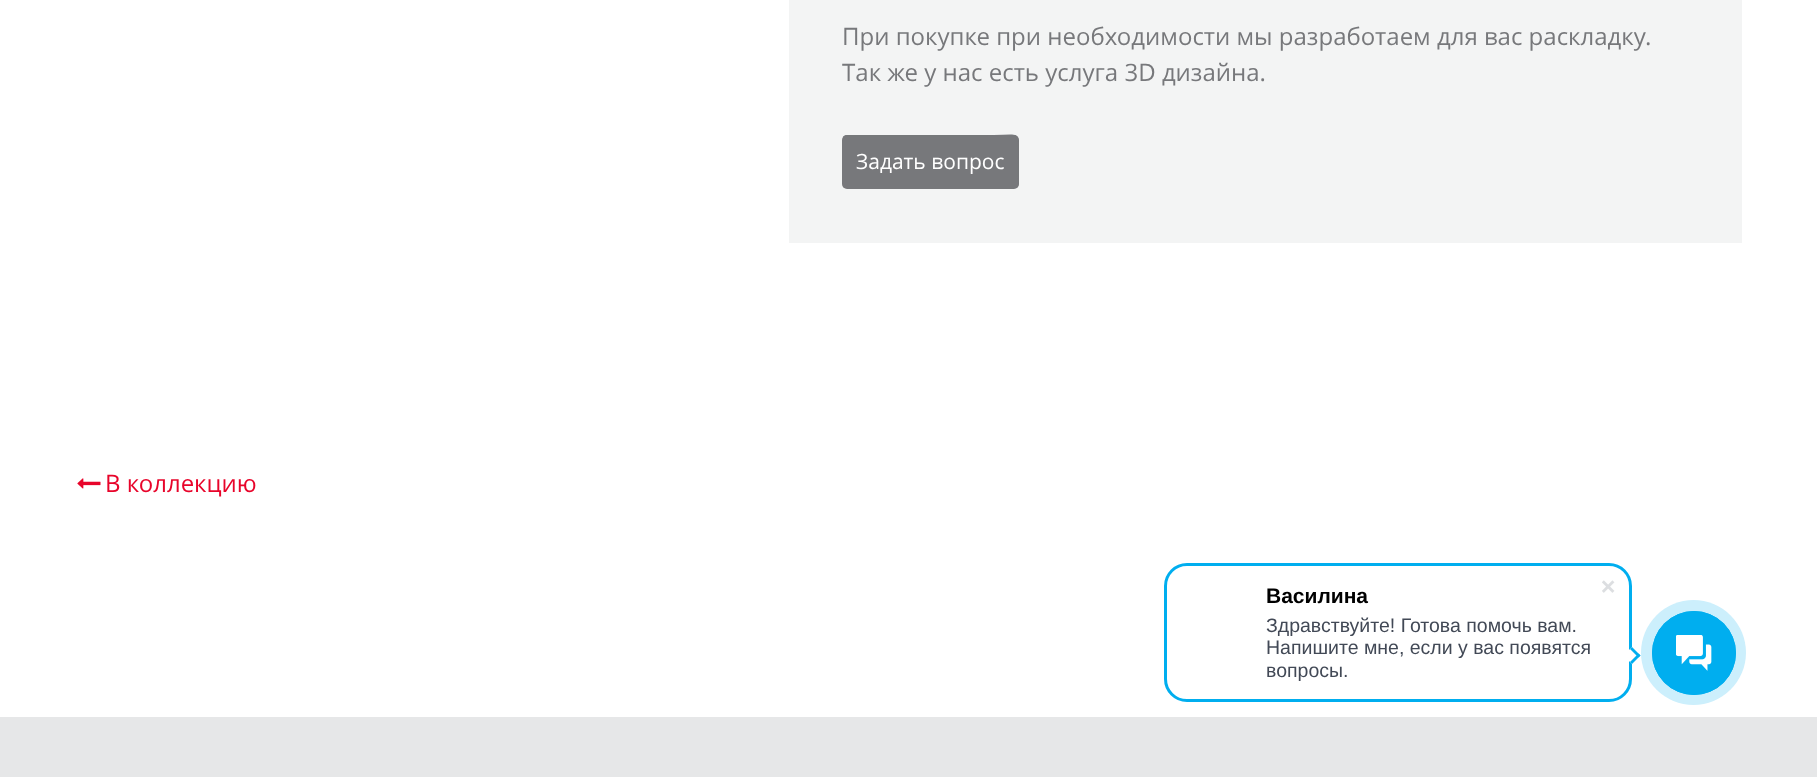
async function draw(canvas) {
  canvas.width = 1817
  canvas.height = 777
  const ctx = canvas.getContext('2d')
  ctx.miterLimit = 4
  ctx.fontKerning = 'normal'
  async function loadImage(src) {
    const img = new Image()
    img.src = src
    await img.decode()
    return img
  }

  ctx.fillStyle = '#fff'
  ctx.fillRect(0, 0, 1817, 777)
  ctx.fillStyle = '#f3f4f4'
  ctx.fillRect(789, 0, 953, 243)
  ctx.font = '24px Open Sans'
  ctx.fillStyle = '#77787b'
  ctx.fillText('При покупке при необходимости мы разработаем для вас раскладку.', 842, 45)
  ctx.fillText('Так же у нас есть услуга 3D дизайна.', 842, 81)
  ctx.beginPath()
  ctx.roundRect(842, 135, 177, 54, 5)
  ctx.fill()
  ctx.beginPath()
  ctx.moveTo(843.5, 137)
  ctx.lineTo(846, 136)
  ctx.lineTo(986, 136)
  ctx.bezierCurveTo(1023.5, 136, 1018, 128.5, 1018, 162)
  ctx.lineTo(1018, 177)
  ctx.bezierCurveTo(1018, 178.5, 1019, 185, 1016.5, 187)
  ctx.strokeStyle = '#77787b'
  ctx.lineWidth = 1.5
  ctx.stroke()
  ctx.font = '21px Open Sans'
  ctx.fillStyle = '#fff'
  ctx.fillText('Задать вопрос', 856, 169)
  ctx.drawImage(await loadImage('image0.png'), 77, 478, 24, 11)
  ctx.font = '24px Open Sans'
  ctx.fillStyle = '#e8042a'
  ctx.fillText('В коллекцию', 105, 492)
  ctx.beginPath()
  ctx.roundRect(1165.5, 564.5, 465, 136, 21.5)
  ctx.strokeStyle = '#00aeef'
  ctx.lineWidth = 3
  ctx.stroke()
  ctx.drawImage(await loadImage('image1.png'), 1602, 580, 13, 13)
  ctx.font = 'bold 21px Liberation Sans'
  ctx.fillStyle = '#000'
  ctx.fillText('Василина', 1266, 603)
  ctx.font = '19.5px Liberation Sans'
  ctx.fillStyle = '#424956'
  ctx.fillText('Здравствуйте! Готова помочь вам.', 1266, 632)
  ctx.fillText('Напишите мне, если у вас появятся', 1266, 654)
  ctx.fillText('вопросы.', 1266, 677)
  ctx.fillStyle = '#fff'
  ctx.beginPath()
  ctx.moveTo(1623.5, 655.5)
  ctx.lineTo(1632, 647)
  ctx.lineTo(1640.5, 655.5)
  ctx.lineTo(1632, 664)
  ctx.closePath()
  ctx.fill()
  ctx.fillStyle = '#00aeef'
  ctx.beginPath()
  ctx.moveTo(1630, 649)
  ctx.lineTo(1632, 647)
  ctx.lineTo(1640.5, 655.5)
  ctx.lineTo(1638.5, 657.5)
  ctx.closePath()
  ctx.fill()
  ctx.beginPath()
  ctx.moveTo(1630, 662)
  ctx.lineTo(1638.5, 653.5)
  ctx.lineTo(1640.5, 655.5)
  ctx.lineTo(1632, 664)
  ctx.closePath()
  ctx.fill()
  ctx.fillStyle = '#cceffc'
  ctx.beginPath()
  ctx.arc(1693.5, 652.5, 52.5, 0, 2 * Math.PI)
  ctx.fill()
  ctx.beginPath()
  ctx.arc(1694, 653, 41.5, 0, 2 * Math.PI)
  ctx.lineWidth = 1
  ctx.stroke()
  ctx.fillStyle = '#00aeef'
  ctx.beginPath()
  ctx.arc(1694, 653, 42, 0, 2 * Math.PI)
  ctx.fill()
  ctx.drawImage(await loadImage('image2.png'), 1676, 635, 36, 36)
  ctx.fillStyle = '#e6e7e8'
  ctx.fillRect(0, 717, 1817, 60)
}

draw(document.querySelector('canvas'))
